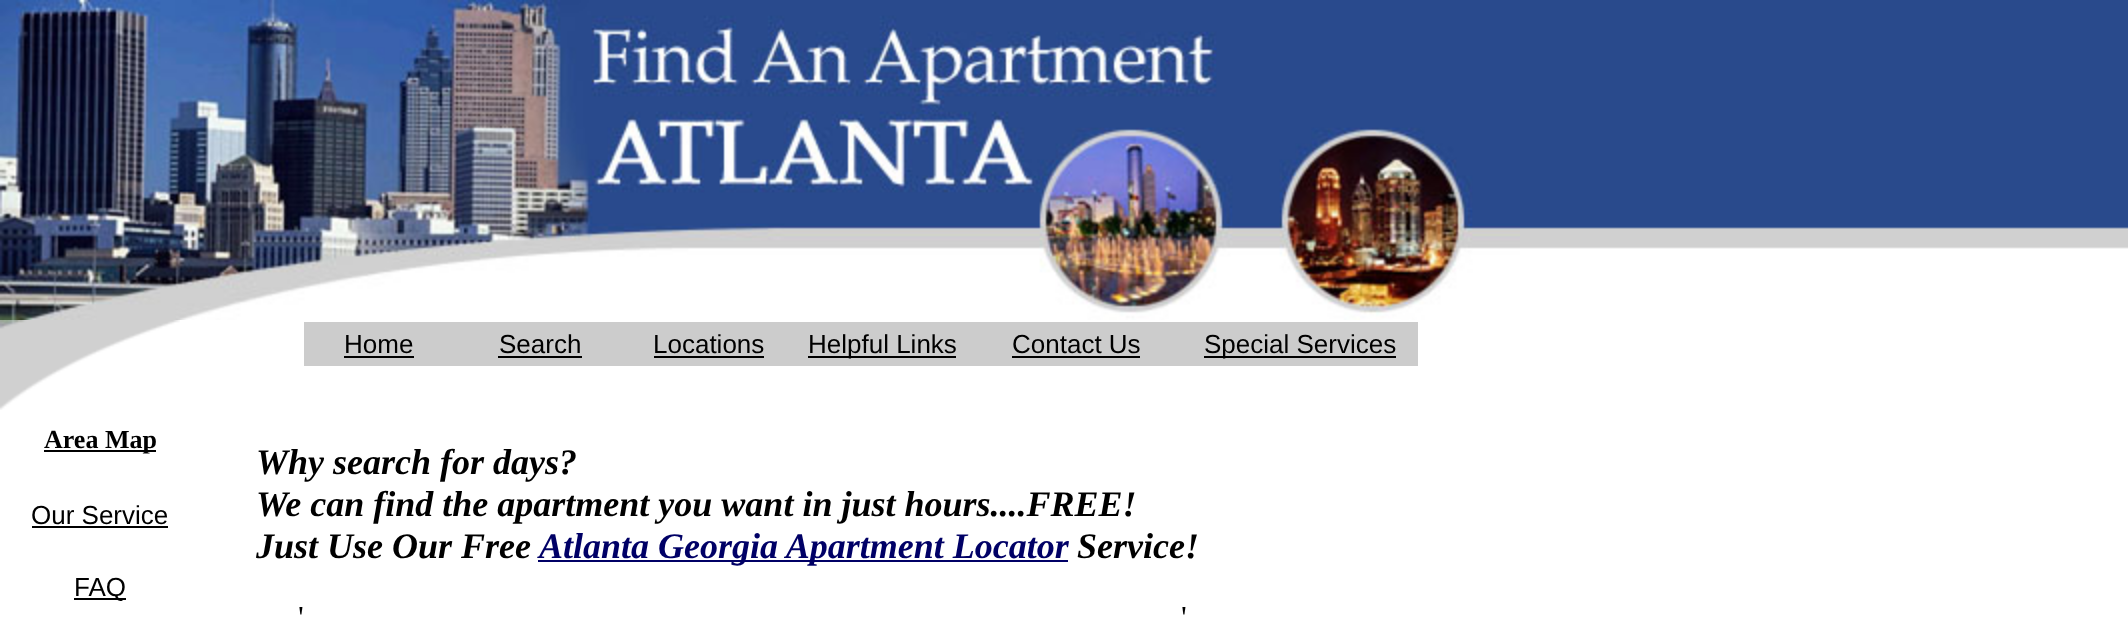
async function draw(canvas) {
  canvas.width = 2128
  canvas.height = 619
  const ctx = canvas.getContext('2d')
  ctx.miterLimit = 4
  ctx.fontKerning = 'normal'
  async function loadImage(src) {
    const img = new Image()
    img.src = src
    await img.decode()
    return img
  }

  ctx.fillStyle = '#fff'
  ctx.fillRect(0, 0, 2128, 619)
  ctx.drawImage(await loadImage('image0.png'), 0, 0, 1520, 320)
  ctx.drawImage(await loadImage('image1.png'), 1520, 0, 608, 249)
  ctx.drawImage(await loadImage('image2.png'), 0, 320, 180, 90)
  ctx.fillStyle = '#000'
  ctx.fillRect(44, 450, 112, 2)
  ctx.font = 'bold 26px Liberation Serif'
  ctx.fillText('Area Map', 44, 448)
  ctx.font = '26px Liberation Sans'
  ctx.fillText('Our Service', 31, 524)
  ctx.fillRect(32, 526, 136, 2)
  ctx.fillRect(74, 598, 52, 2)
  ctx.fillText('FAQ', 74, 596)
  ctx.fillStyle = '#ccc'
  ctx.fillRect(304, 322, 1114, 44)
  ctx.fillStyle = '#000'
  ctx.fillText('Home', 344, 353)
  ctx.fillRect(344, 356, 70, 2)
  ctx.fillText('Search', 499, 353)
  ctx.fillRect(498, 356, 84, 2)
  ctx.fillText('Locations', 653, 353)
  ctx.fillRect(654, 356, 110, 2)
  ctx.fillRect(808, 356, 148, 2)
  ctx.fillText('Helpful Links', 808, 353)
  ctx.fillText('Contact Us', 1012, 353)
  ctx.fillRect(1012, 356, 128, 2)
  ctx.fillRect(1204, 356, 192, 2)
  ctx.fillText('Special Services', 1204, 353)
  ctx.font = 'italic bold 36px Liberation Serif'
  ctx.fillText('Why search for days?', 256, 474)
  ctx.fillText('We can find the apartment you want in just hours....FREE!', 256, 516)
  ctx.fillText('Just Use Our Free', 256, 558)
  ctx.fillStyle = '#006'
  ctx.fillRect(538, 560, 530, 2)
  ctx.fillText('Atlanta Georgia Apartment Locator', 539, 558)
  ctx.fillStyle = '#000'
  ctx.fillText('Service!', 1077, 558)
  ctx.font = '32px Liberation Serif'
  ctx.fillText('\'', 298, 628)
  ctx.fillText('\'', 1181, 628)
}

draw(document.querySelector('canvas'))
